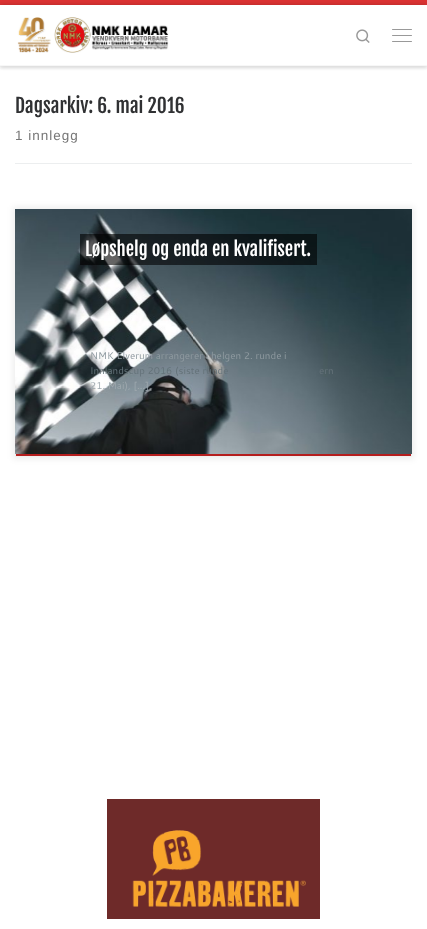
async function draw(canvas) {
  canvas.width = 427
  canvas.height = 929
  const ctx = canvas.getContext('2d')
  ctx.miterLimit = 4
  ctx.fontKerning = 'normal'
  async function loadImage(src) {
    const img = new Image()
    img.src = src
    await img.decode()
    return img
  }

  ctx.fillStyle = '#fff'
  ctx.fillRect(0, 0, 427, 929)
  ctx.save()
  ctx.beginPath()
  ctx.rect(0, 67, 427, 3)
  ctx.clip()
  ctx.fillStyle = '#66666614'
  ctx.filter = 'blur(1px)'
  ctx.beginPath()
  ctx.rect(0, 2, 427, 67)
  ctx.fill()
  ctx.filter = 'none'
  ctx.restore()
  ctx.fillStyle = '#d33'
  ctx.fillRect(0, 0, 427, 5)
  ctx.fillStyle = '#f6f6f6'
  ctx.fillRect(0, 66, 427, 1)
  ctx.save()
  ctx.beginPath()
  ctx.moveTo(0, 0)
  ctx.lineTo(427, 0)
  ctx.lineTo(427, 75)
  ctx.lineTo(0, 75)
  ctx.closePath()
  ctx.moveTo(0, 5)
  ctx.lineTo(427, 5)
  ctx.lineTo(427, 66)
  ctx.lineTo(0, 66)
  ctx.closePath()
  ctx.clip('evenodd')
  ctx.fillStyle = '#00000033'
  ctx.filter = 'blur(2.5px)'
  ctx.beginPath()
  ctx.rect(0, 5, 427, 61)
  ctx.fill()
  ctx.filter = 'none'
  ctx.restore()
  ctx.drawImage(await loadImage('image0.png'), 17, 17, 152, 36)
  ctx.drawImage(await loadImage('image1.png'), 356, 29, 14, 14)
  ctx.fillStyle = '#999'
  ctx.beginPath()
  ctx.roundRect(392, 29, 20, 1, 0.5)
  ctx.fill()
  ctx.beginPath()
  ctx.roundRect(392, 35, 20, 1, 0.5)
  ctx.fill()
  ctx.beginPath()
  ctx.roundRect(392, 41, 20, 1, 0.5)
  ctx.fill()
  ctx.fillStyle = '#f7f7f7'
  ctx.fillRect(0, 65, 427, 1)
  ctx.font = '19.4px Fjalla One'
  ctx.fillStyle = '#303133'
  ctx.fillText('Dagsarkiv: 6. mai 2016', 15, 113)
  ctx.letterSpacing = '1px'
  ctx.font = '13.5px Liberation Sans'
  ctx.fillStyle = '#777'
  ctx.fillText('1 innlegg', 15, 140)
  ctx.fillStyle = '#eceeef'
  ctx.fillRect(15, 163, 397, 1)
  ctx.fillStyle = '#00000012'
  ctx.filter = 'blur(3px)'
  ctx.beginPath()
  ctx.rect(13, 207, 401, 252)
  ctx.fill()
  ctx.filter = 'none'
  ctx.fillStyle = '#b51e1e'
  ctx.fillRect(15, 454, 397, 2)
  ctx.strokeStyle = '#efefef'
  ctx.strokeRect(15.5, 209.5, 396, 247)
  ctx.drawImage(await loadImage('image2.png'), 15, 209, 397, 245)
  ctx.fillStyle = '#00000099'
  ctx.fillRect(80, 234, 237, 31)
  ctx.letterSpacing = '0px'
  ctx.font = '18.6px Fjalla One'
  ctx.fillStyle = '#fff'
  ctx.fillText('Løpshelg og enda en kvalifisert.', 85, 256)
  ctx.font = '9.8px Cantarell'
  ctx.fillStyle = '#8f9aa0'
  ctx.fillText('NMK Elverum arrangerer i helgen 2. runde i', 90, 359)
  ctx.fillStyle = '#647279'
  ctx.fillText('Innlandscup 2016 (siste runde', 90, 374)
  ctx.fillText('ern', 319, 374)
  ctx.fillStyle = '#9ea8ae'
  ctx.fillText('21. Mai), […]', 90, 389)
  ctx.drawImage(await loadImage('image3.png'), 107, 799, 213, 120)
}

draw(document.querySelector('canvas'))
